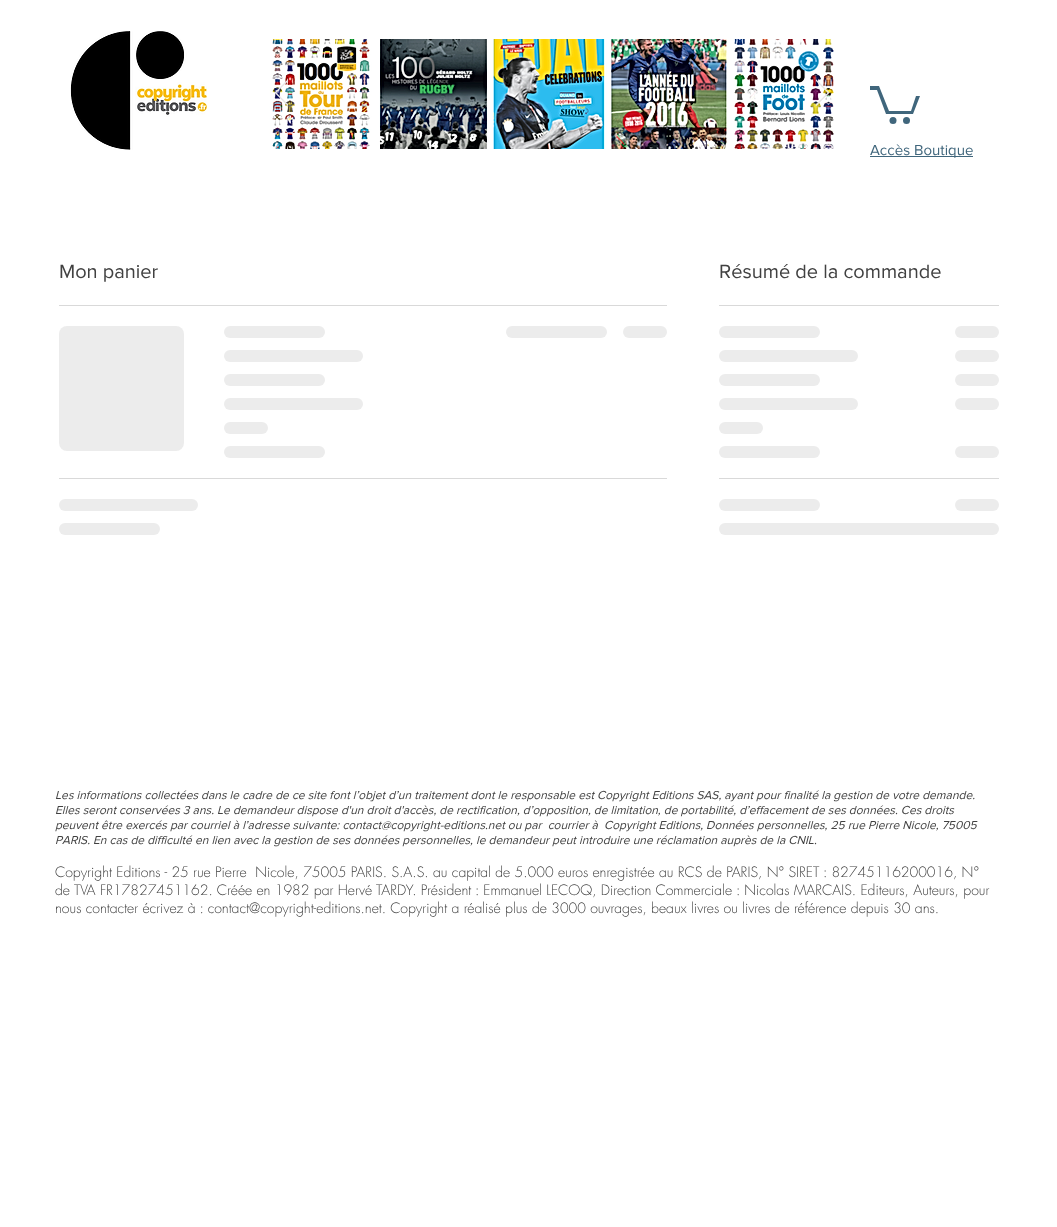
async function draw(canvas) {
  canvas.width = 1057
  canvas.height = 1227
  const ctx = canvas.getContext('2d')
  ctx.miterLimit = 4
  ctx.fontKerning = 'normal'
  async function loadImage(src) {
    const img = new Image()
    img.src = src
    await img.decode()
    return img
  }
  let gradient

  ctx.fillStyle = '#fff'
  ctx.fillRect(0, 0, 1057, 1227)
  ctx.drawImage(await loadImage('image0.png'), 70, 31, 137, 119)
  ctx.drawImage(await loadImage('image1.png'), 268, 39, 569, 110)
  ctx.drawImage(await loadImage('image2.png'), 275, 79, 13, 27)
  ctx.drawImage(await loadImage('image3.png'), 816, 79, 14, 27)
  ctx.fillStyle = '#40667c'
  ctx.beginPath()
  ctx.moveTo(920, 96)
  ctx.lineTo(913, 114)
  ctx.lineTo(886, 114)
  ctx.lineTo(877, 90)
  ctx.lineTo(870, 90)
  ctx.lineTo(870, 86)
  ctx.lineTo(879, 86)
  ctx.lineTo(889, 111)
  ctx.lineTo(911, 111)
  ctx.lineTo(916, 96)
  ctx.fill()
  ctx.beginPath()
  ctx.arc(906.5, 120.5, 3.5, 0, 2 * Math.PI)
  ctx.fill()
  ctx.beginPath()
  ctx.arc(893, 120.5, 3.5, 0, 2 * Math.PI)
  ctx.fill()
  ctx.fillRect(870, 156, 103, 1)
  ctx.font = '15px "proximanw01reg"'
  ctx.fillText('Accès Boutique', 870, 155)
  ctx.fillStyle = '#d9d9d9'
  ctx.fillRect(59, 305, 608, 1)
  ctx.font = '20px "proximanw01reg"'
  ctx.fillStyle = '#414141'
  ctx.fillText('Mon panier', 59, 278)
  gradient = ctx.createLinearGradient(59, 389, 559, 389)
  gradient.addColorStop(0.25, '#ececec')
  gradient.addColorStop(0.37, '#d9d9d9')
  gradient.addColorStop(0.63, '#ececec')
  ctx.fillStyle = gradient
  ctx.beginPath()
  ctx.roundRect(59, 326, 125, 125, 8)
  ctx.fill()
  gradient = ctx.createLinearGradient(224, 332, 628, 332)
  gradient.addColorStop(0.25, '#ececec')
  gradient.addColorStop(0.37, '#d9d9d9')
  gradient.addColorStop(0.63, '#ececec')
  ctx.fillStyle = gradient
  ctx.beginPath()
  ctx.roundRect(224, 326, 101, 12, 6)
  ctx.fill()
  gradient = ctx.createLinearGradient(224, 356, 780, 356)
  gradient.addColorStop(0.25, '#ececec')
  gradient.addColorStop(0.37, '#d9d9d9')
  gradient.addColorStop(0.63, '#ececec')
  ctx.fillStyle = gradient
  ctx.beginPath()
  ctx.roundRect(224, 350, 139, 12, 6)
  ctx.fill()
  gradient = ctx.createLinearGradient(224, 380, 628, 380)
  gradient.addColorStop(0.25, '#ececec')
  gradient.addColorStop(0.37, '#d9d9d9')
  gradient.addColorStop(0.63, '#ececec')
  ctx.fillStyle = gradient
  ctx.beginPath()
  ctx.roundRect(224, 374, 101, 12, 6)
  ctx.fill()
  gradient = ctx.createLinearGradient(224, 404, 780, 404)
  gradient.addColorStop(0.25, '#ececec')
  gradient.addColorStop(0.37, '#d9d9d9')
  gradient.addColorStop(0.63, '#ececec')
  ctx.fillStyle = gradient
  ctx.beginPath()
  ctx.roundRect(224, 398, 139, 12, 6)
  ctx.fill()
  gradient = ctx.createLinearGradient(224, 428, 400, 428)
  gradient.addColorStop(0.25, '#ececec')
  gradient.addColorStop(0.37, '#d9d9d9')
  gradient.addColorStop(0.63, '#ececec')
  ctx.fillStyle = gradient
  ctx.beginPath()
  ctx.roundRect(224, 422, 44, 12, 6)
  ctx.fill()
  gradient = ctx.createLinearGradient(224, 452, 628, 452)
  gradient.addColorStop(0.25, '#ececec')
  gradient.addColorStop(0.37, '#d9d9d9')
  gradient.addColorStop(0.63, '#ececec')
  ctx.fillStyle = gradient
  ctx.beginPath()
  ctx.roundRect(224, 446, 101, 12, 6)
  ctx.fill()
  gradient = ctx.createLinearGradient(506, 332, 910, 332)
  gradient.addColorStop(0.25, '#ececec')
  gradient.addColorStop(0.37, '#d9d9d9')
  gradient.addColorStop(0.63, '#ececec')
  ctx.fillStyle = gradient
  ctx.beginPath()
  ctx.roundRect(506, 326, 101, 12, 6)
  ctx.fill()
  gradient = ctx.createLinearGradient(623, 332, 799, 332)
  gradient.addColorStop(0.25, '#ececec')
  gradient.addColorStop(0.37, '#d9d9d9')
  gradient.addColorStop(0.63, '#ececec')
  ctx.fillStyle = gradient
  ctx.beginPath()
  ctx.roundRect(623, 326, 44, 12, 6)
  ctx.fill()
  ctx.fillStyle = '#d9d9d9'
  ctx.fillRect(59, 478, 608, 1)
  gradient = ctx.createLinearGradient(59, 505, 615, 505)
  gradient.addColorStop(0.25, '#ececec')
  gradient.addColorStop(0.37, '#d9d9d9')
  gradient.addColorStop(0.63, '#ececec')
  ctx.fillStyle = gradient
  ctx.beginPath()
  ctx.roundRect(59, 499, 139, 12, 6)
  ctx.fill()
  gradient = ctx.createLinearGradient(59, 529, 463, 529)
  gradient.addColorStop(0.25, '#ececec')
  gradient.addColorStop(0.37, '#d9d9d9')
  gradient.addColorStop(0.63, '#ececec')
  ctx.fillStyle = gradient
  ctx.beginPath()
  ctx.roundRect(59, 523, 101, 12, 6)
  ctx.fill()
  ctx.fillStyle = '#d9d9d9'
  ctx.fillRect(719, 305, 280, 1)
  ctx.fillStyle = '#414141'
  ctx.fillText('Résumé de la commande', 719, 278)
  gradient = ctx.createLinearGradient(719, 332, 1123, 332)
  gradient.addColorStop(0.25, '#ececec')
  gradient.addColorStop(0.37, '#d9d9d9')
  gradient.addColorStop(0.63, '#ececec')
  ctx.fillStyle = gradient
  ctx.beginPath()
  ctx.roundRect(719, 326, 101, 12, 6)
  ctx.fill()
  gradient = ctx.createLinearGradient(955, 332, 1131, 332)
  gradient.addColorStop(0.25, '#ececec')
  gradient.addColorStop(0.37, '#d9d9d9')
  gradient.addColorStop(0.63, '#ececec')
  ctx.fillStyle = gradient
  ctx.beginPath()
  ctx.roundRect(955, 326, 44, 12, 6)
  ctx.fill()
  gradient = ctx.createLinearGradient(719, 356, 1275, 356)
  gradient.addColorStop(0.25, '#ececec')
  gradient.addColorStop(0.37, '#d9d9d9')
  gradient.addColorStop(0.63, '#ececec')
  ctx.fillStyle = gradient
  ctx.beginPath()
  ctx.roundRect(719, 350, 139, 12, 6)
  ctx.fill()
  gradient = ctx.createLinearGradient(955, 356, 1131, 356)
  gradient.addColorStop(0.25, '#ececec')
  gradient.addColorStop(0.37, '#d9d9d9')
  gradient.addColorStop(0.63, '#ececec')
  ctx.fillStyle = gradient
  ctx.beginPath()
  ctx.roundRect(955, 350, 44, 12, 6)
  ctx.fill()
  gradient = ctx.createLinearGradient(719, 380, 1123, 380)
  gradient.addColorStop(0.25, '#ececec')
  gradient.addColorStop(0.37, '#d9d9d9')
  gradient.addColorStop(0.63, '#ececec')
  ctx.fillStyle = gradient
  ctx.beginPath()
  ctx.roundRect(719, 374, 101, 12, 6)
  ctx.fill()
  gradient = ctx.createLinearGradient(955, 380, 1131, 380)
  gradient.addColorStop(0.25, '#ececec')
  gradient.addColorStop(0.37, '#d9d9d9')
  gradient.addColorStop(0.63, '#ececec')
  ctx.fillStyle = gradient
  ctx.beginPath()
  ctx.roundRect(955, 374, 44, 12, 6)
  ctx.fill()
  gradient = ctx.createLinearGradient(719, 404, 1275, 404)
  gradient.addColorStop(0.25, '#ececec')
  gradient.addColorStop(0.37, '#d9d9d9')
  gradient.addColorStop(0.63, '#ececec')
  ctx.fillStyle = gradient
  ctx.beginPath()
  ctx.roundRect(719, 398, 139, 12, 6)
  ctx.fill()
  gradient = ctx.createLinearGradient(955, 404, 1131, 404)
  gradient.addColorStop(0.25, '#ececec')
  gradient.addColorStop(0.37, '#d9d9d9')
  gradient.addColorStop(0.63, '#ececec')
  ctx.fillStyle = gradient
  ctx.beginPath()
  ctx.roundRect(955, 398, 44, 12, 6)
  ctx.fill()
  gradient = ctx.createLinearGradient(719, 428, 895, 428)
  gradient.addColorStop(0.25, '#ececec')
  gradient.addColorStop(0.37, '#d9d9d9')
  gradient.addColorStop(0.63, '#ececec')
  ctx.fillStyle = gradient
  ctx.beginPath()
  ctx.roundRect(719, 422, 44, 12, 6)
  ctx.fill()
  gradient = ctx.createLinearGradient(719, 452, 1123, 452)
  gradient.addColorStop(0.25, '#ececec')
  gradient.addColorStop(0.37, '#d9d9d9')
  gradient.addColorStop(0.63, '#ececec')
  ctx.fillStyle = gradient
  ctx.beginPath()
  ctx.roundRect(719, 446, 101, 12, 6)
  ctx.fill()
  gradient = ctx.createLinearGradient(955, 452, 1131, 452)
  gradient.addColorStop(0.25, '#ececec')
  gradient.addColorStop(0.37, '#d9d9d9')
  gradient.addColorStop(0.63, '#ececec')
  ctx.fillStyle = gradient
  ctx.beginPath()
  ctx.roundRect(955, 446, 44, 12, 6)
  ctx.fill()
  ctx.fillStyle = '#d9d9d9'
  ctx.fillRect(719, 478, 280, 1)
  gradient = ctx.createLinearGradient(719, 505, 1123, 505)
  gradient.addColorStop(0.25, '#ececec')
  gradient.addColorStop(0.37, '#d9d9d9')
  gradient.addColorStop(0.63, '#ececec')
  ctx.fillStyle = gradient
  ctx.beginPath()
  ctx.roundRect(719, 499, 101, 12, 6)
  ctx.fill()
  gradient = ctx.createLinearGradient(955, 505, 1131, 505)
  gradient.addColorStop(0.25, '#ececec')
  gradient.addColorStop(0.37, '#d9d9d9')
  gradient.addColorStop(0.63, '#ececec')
  ctx.fillStyle = gradient
  ctx.beginPath()
  ctx.roundRect(955, 499, 44, 12, 6)
  ctx.fill()
  gradient = ctx.createLinearGradient(719, 529, 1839, 529)
  gradient.addColorStop(0.25, '#ececec')
  gradient.addColorStop(0.37, '#d9d9d9')
  gradient.addColorStop(0.63, '#ececec')
  ctx.fillStyle = gradient
  ctx.beginPath()
  ctx.roundRect(719, 523, 280, 12, 6)
  ctx.fill()
  ctx.font = 'italic 12px "proximanw01reg"'
  ctx.fillStyle = '#414141'
  ctx.fillText('Les informations collectées dans le cadre de ce site font l’objet d’un traitement dont le responsable est Copyright Editions SAS, ayant pour finalité la gestion de votre demande.', 55, 799)
  ctx.fillText('Elles seront conservées 3 ans. Le demandeur dispose d\'un droit d\'accès, de rectification, d’opposition, de limitation, de portabilité, d’effacement de ses données. Ces droits', 55, 814)
  ctx.fillText('peuvent être exercés par courriel à l’adresse suivante: contact@copyright-editions.net ou par  courrier à  Copyright Editions, Données personnelles, 25 rue Pierre Nicole, 75005', 55, 829)
  ctx.fillText('PARIS. En cas de difficulté en lien avec la gestion de ses données personnelles, le demandeur peut introduire une réclamation auprès de la CNIL.', 55, 844)
  ctx.font = '300 14px futura'
  ctx.fillText('Copyright Editions - 25 rue Pierre  Nicole, 75005 PARIS. S.A.S. au capital de 5.000 euros enregistrée au RCS de PARIS, N° SIRET : 82745116200016, N°', 55, 877)
  ctx.fillText('de TVA FR17827451162. Créée en 1982 par Hervé TARDY. Président : Emmanuel LECOQ, Direction Commerciale : Nicolas MARCAIS. Editeurs, Auteurs, pour', 55, 895)
  ctx.fillText('nous contacter écrivez à : contact@copyright-editions.net. Copyright a réalisé plus de 3000 ouvrages, beaux livres ou livres de référence depuis 30 ans.', 55, 913)
}

draw(document.querySelector('canvas'))
